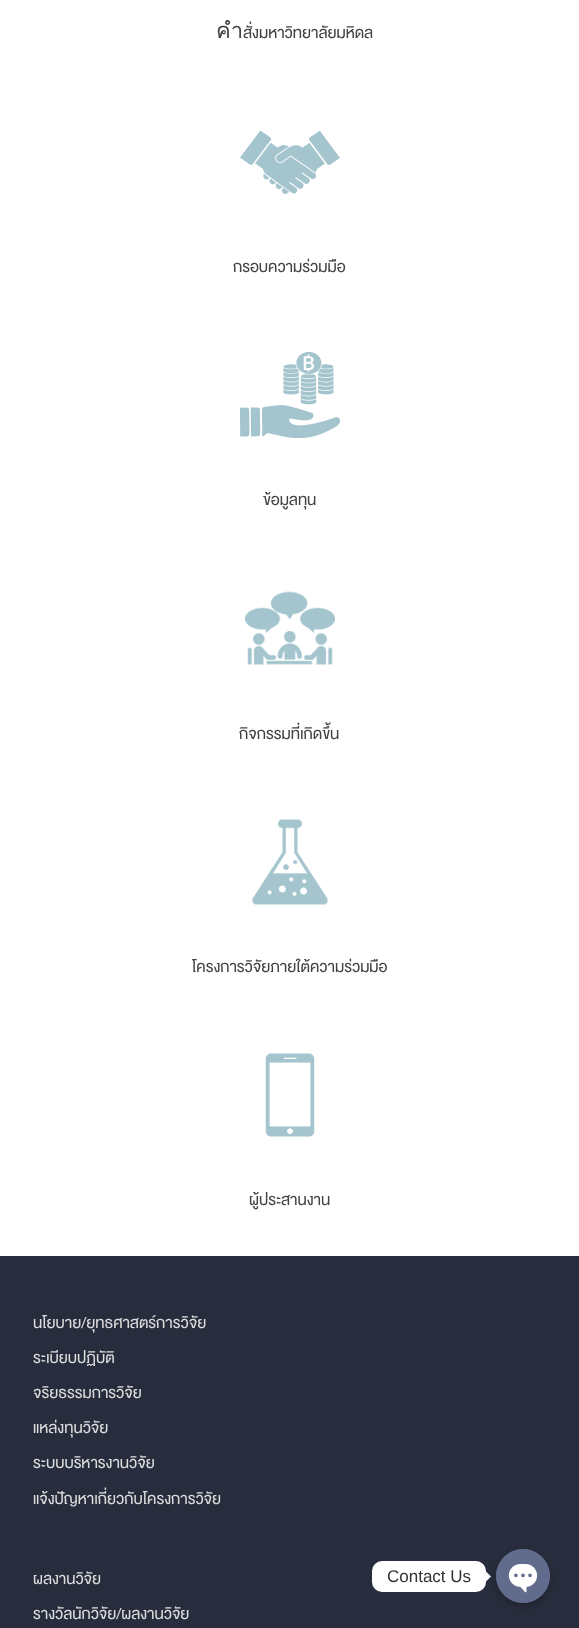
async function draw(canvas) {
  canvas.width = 579
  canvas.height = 1628
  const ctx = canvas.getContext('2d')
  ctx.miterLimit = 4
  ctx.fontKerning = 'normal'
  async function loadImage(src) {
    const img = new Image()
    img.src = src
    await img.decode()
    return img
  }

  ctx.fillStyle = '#fff'
  ctx.fillRect(0, 0, 579, 1628)
  ctx.font = '22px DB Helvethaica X'
  ctx.fillStyle = '#424343'
  ctx.fillText('คำสั่งมหาวิทยาลัยมหิดล', 216, 38)
  ctx.drawImage(await loadImage('image0.png'), 240, 130, 100, 64)
  ctx.fillText('กรอบความร่วมมือ', 233, 272)
  ctx.drawImage(await loadImage('image1.png'), 240, 352, 100, 86)
  ctx.fillText('ข้อมูลทุน', 263, 505)
  ctx.drawImage(await loadImage('image2.png'), 245, 591, 90, 74)
  ctx.fillText('กิจกรรมที่เกิดขึ้น', 239, 739)
  ctx.drawImage(await loadImage('image3.png'), 252, 819, 77, 86)
  ctx.fillText('โครงการวิจัยภายใต้ความร่วมมือ', 192, 972)
  ctx.drawImage(await loadImage('image4.png'), 265, 1053, 50, 84)
  ctx.fillText('ผู้ประสานงาน', 249, 1205)
  ctx.fillStyle = '#282d3d'
  ctx.fillRect(0, 1256, 579, 372)
  ctx.fillStyle = '#ddd'
  ctx.fillText('นโยบาย/ยุทธศาสตร์การวิจัย', 33, 1328)
  ctx.fillText('ระเบียบปฏิบัติ', 33, 1363)
  ctx.fillText('จริยธรรมการวิจัย', 33, 1398)
  ctx.fillText('แหล่งทุนวิจัย', 33, 1433)
  ctx.fillText('ระบบบริหารงานวิจัย', 33, 1468)
  ctx.fillText('แจ้งปัญหาเกี่ยวกับโครงการวิจัย', 33, 1504)
  ctx.fillText('ผลงานวิจัย', 33, 1584)
  ctx.fillText('รางวัลนักวิจัย/ผลงานวิจัย', 33, 1619)
  ctx.fillStyle = '#fff'
  ctx.beginPath()
  ctx.roundRect(372, 1561, 114, 31, 10)
  ctx.fill()
  ctx.font = '17px Liberation Sans'
  ctx.fillStyle = '#333'
  ctx.fillText('Contact Us', 387, 1582)
  ctx.fillStyle = '#fff'
  ctx.beginPath()
  ctx.moveTo(486, 1581.5)
  ctx.lineTo(486, 1571.5)
  ctx.lineTo(491, 1576.5)
  ctx.closePath()
  ctx.fill()
  ctx.drawImage(await loadImage('image6.png'), 546, 1588, 1, 1)
  ctx.fillStyle = '#00000040'
  ctx.filter = 'blur(3px)'
  ctx.beginPath()
  ctx.roundRect(496, 1552, 54, 54, 27)
  ctx.fill()
  ctx.filter = 'none'
  ctx.fillStyle = '#616b8c'
  ctx.beginPath()
  ctx.arc(523, 1576, 27, 0, 2 * Math.PI)
  ctx.fill()
  ctx.drawImage(await loadImage('image5.png'), 496, 1549, 54, 54)
}

draw(document.querySelector('canvas'))
